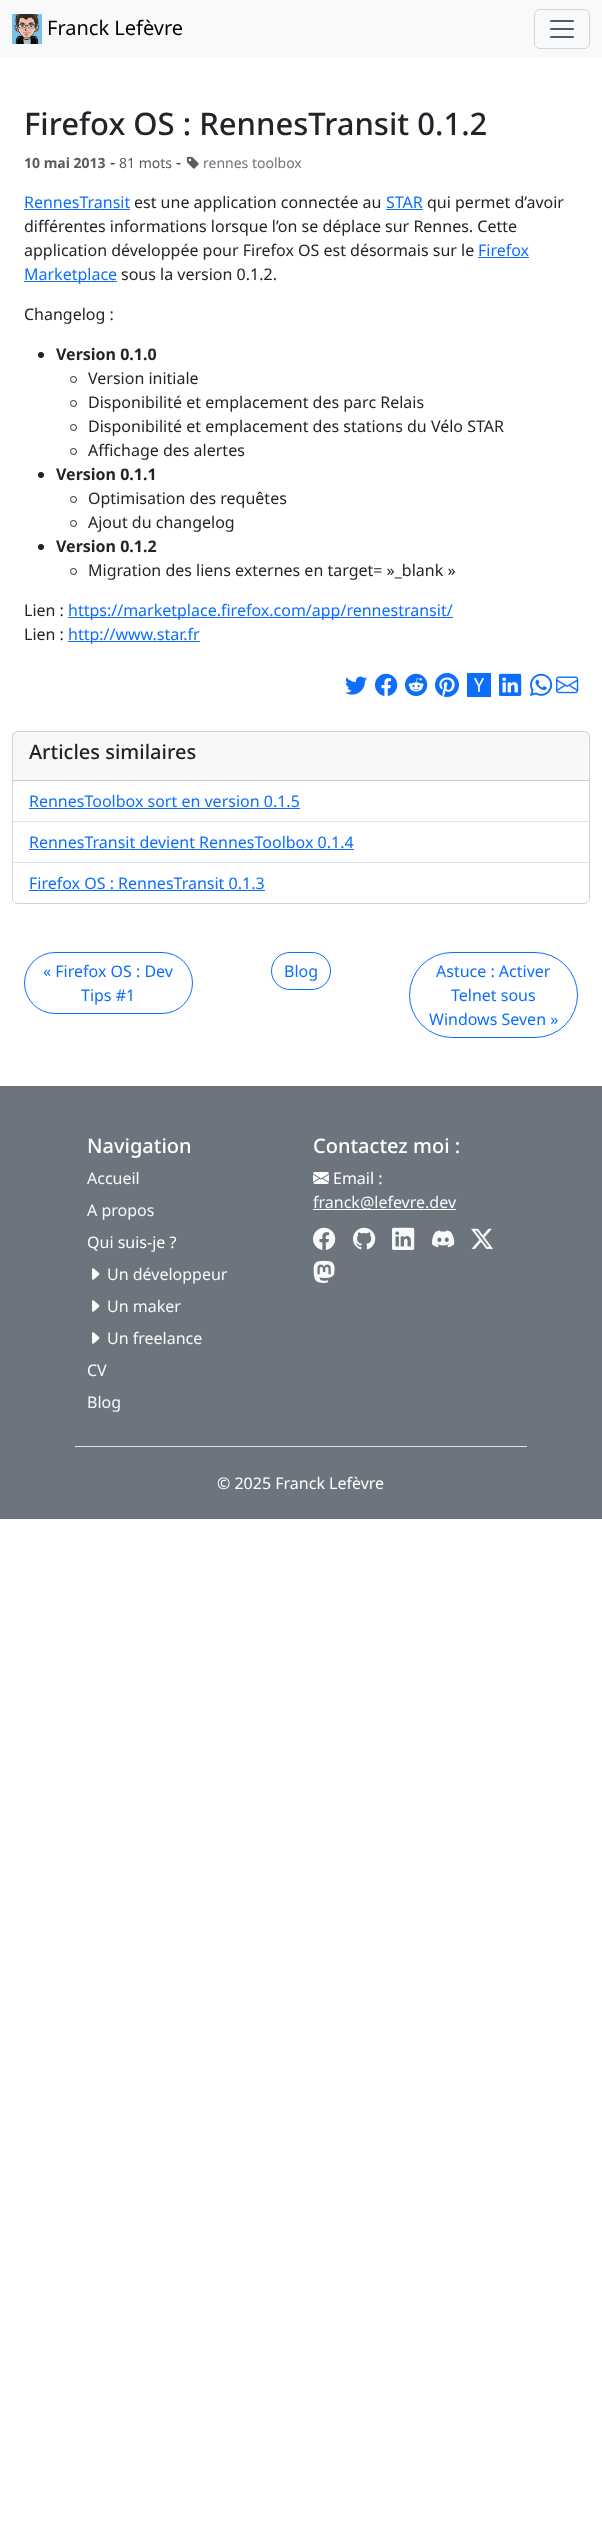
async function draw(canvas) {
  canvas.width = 602
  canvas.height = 2531
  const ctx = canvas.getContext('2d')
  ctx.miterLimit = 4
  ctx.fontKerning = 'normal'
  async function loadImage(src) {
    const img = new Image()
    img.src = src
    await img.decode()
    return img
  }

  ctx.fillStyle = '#fff'
  ctx.fillRect(0, 0, 602, 2531)
  ctx.fillStyle = '#f8f9fa'
  ctx.fillRect(0, 0, 602, 57)
  ctx.drawImage(await loadImage('image0.png'), 12, 14, 30, 30)
  ctx.font = '20px Noto Sans'
  ctx.fillStyle = '#000'
  ctx.fillText('Franck Lefèvre', 47, 35)
  ctx.beginPath()
  ctx.roundRect(534.5, 9.5, 55, 39, 5.5)
  ctx.strokeStyle = '#d3d4d5'
  ctx.stroke()
  ctx.drawImage(await loadImage('image1.png'), 550, 20, 24, 18)
  ctx.font = '500 31px Noto Sans'
  ctx.fillStyle = '#212529'
  ctx.fillText('Firefox OS : RennesTransit 0.1.2', 24, 135)
  ctx.font = 'bold 14px Noto Sans'
  ctx.fillStyle = '#595c5f'
  ctx.fillText('10 mai 2013', 24, 168)
  ctx.font = '16px Noto Sans'
  ctx.fillStyle = '#212529'
  ctx.fillText('-', 110, 168)
  ctx.font = '14px Noto Sans'
  ctx.fillStyle = '#595c5f'
  ctx.fillText('81 mots', 119, 168)
  ctx.font = '16px Noto Sans'
  ctx.fillStyle = '#212529'
  ctx.fillText('-', 176, 168)
  ctx.drawImage(await loadImage('image2.png'), 186, 156, 13, 13)
  ctx.font = '14px Noto Sans'
  ctx.fillStyle = '#6c757d'
  ctx.fillText('rennes toolbox', 203, 168)
  ctx.font = '16px Noto Sans'
  ctx.fillStyle = '#0d6efd'
  ctx.fillText('RennesTransit', 24, 208)
  ctx.fillRect(24, 209, 106, 1)
  ctx.fillStyle = '#212529'
  ctx.fillText('est une application connectée au', 134, 208)
  ctx.fillStyle = '#0d6efd'
  ctx.fillText('STAR', 386, 208)
  ctx.fillRect(386, 209, 37, 1)
  ctx.fillStyle = '#212529'
  ctx.fillText('qui permet d’avoir', 427, 208)
  ctx.fillText('différentes informations lorsque l’on se déplace sur Rennes. Cette', 24, 232)
  ctx.fillText('application développée pour Firefox OS est désormais sur le', 24, 256)
  ctx.fillStyle = '#0d6efd'
  ctx.fillText('Firefox', 478, 256)
  ctx.fillRect(478, 257, 51, 1)
  ctx.fillRect(24, 281, 93, 1)
  ctx.fillText('Marketplace', 24, 280)
  ctx.fillStyle = '#212529'
  ctx.fillText('sous la version 0.1.2.', 121, 280)
  ctx.fillText('Changelog :', 24, 320)
  ctx.beginPath()
  ctx.arc(41, 355, 3, 0, 2 * Math.PI)
  ctx.fill()
  ctx.font = 'bold 16px Noto Sans'
  ctx.fillText('Version 0.1.0', 56, 360)
  ctx.beginPath()
  ctx.arc(73.5, 379.5, 3, 0, 2 * Math.PI)
  ctx.strokeStyle = '#212529'
  ctx.stroke()
  ctx.font = '16px Noto Sans'
  ctx.fillText('Version initiale', 88, 384)
  ctx.beginPath()
  ctx.arc(73.5, 403.5, 3, 0, 2 * Math.PI)
  ctx.stroke()
  ctx.fillText('Disponibilité et emplacement des parc Relais', 88, 408)
  ctx.beginPath()
  ctx.arc(73.5, 427.5, 3, 0, 2 * Math.PI)
  ctx.stroke()
  ctx.fillText('Disponibilité et emplacement des stations du Vélo STAR', 88, 432)
  ctx.beginPath()
  ctx.arc(73.5, 451.5, 3, 0, 2 * Math.PI)
  ctx.stroke()
  ctx.fillText('Affichage des alertes', 88, 456)
  ctx.beginPath()
  ctx.arc(41, 475, 3, 0, 2 * Math.PI)
  ctx.fill()
  ctx.font = 'bold 16px Noto Sans'
  ctx.fillText('Version 0.1.1', 56, 480)
  ctx.beginPath()
  ctx.arc(73.5, 499.5, 3, 0, 2 * Math.PI)
  ctx.stroke()
  ctx.font = '16px Noto Sans'
  ctx.fillText('Optimisation des requêtes', 88, 504)
  ctx.beginPath()
  ctx.arc(73.5, 523.5, 3, 0, 2 * Math.PI)
  ctx.stroke()
  ctx.fillText('Ajout du changelog', 88, 528)
  ctx.beginPath()
  ctx.arc(41, 547, 3, 0, 2 * Math.PI)
  ctx.fill()
  ctx.font = 'bold 16px Noto Sans'
  ctx.fillText('Version 0.1.2', 56, 552)
  ctx.beginPath()
  ctx.arc(73.5, 571.5, 3, 0, 2 * Math.PI)
  ctx.stroke()
  ctx.font = '16px Noto Sans'
  ctx.fillText('Migration des liens externes en target= »_blank »', 88, 576)
  ctx.fillText('Lien :', 24, 616)
  ctx.fillStyle = '#0d6efd'
  ctx.fillRect(68, 617, 385, 1)
  ctx.fillText('https://marketplace.firefox.com/app/rennestransit/', 68, 616)
  ctx.fillStyle = '#212529'
  ctx.fillText('Lien :', 24, 640)
  ctx.fillStyle = '#0d6efd'
  ctx.fillRect(68, 641, 132, 1)
  ctx.fillText('http://www.star.fr', 68, 640)
  ctx.drawImage(await loadImage('image3.png'), 345, 676, 22, 19)
  ctx.drawImage(await loadImage('image4.png'), 375, 673, 23, 23)
  ctx.drawImage(await loadImage('image5.png'), 405, 673, 23, 23)
  ctx.drawImage(await loadImage('image6.png'), 435, 673, 24, 24)
  ctx.drawImage(await loadImage('image7.png'), 467, 673, 24, 24)
  ctx.drawImage(await loadImage('image8.png'), 499, 673, 23, 23)
  ctx.drawImage(await loadImage('image9.png'), 530, 673, 23, 23)
  ctx.drawImage(await loadImage('image10.png'), 556, 676, 23, 18)
  ctx.beginPath()
  ctx.roundRect(12.5, 731.5, 577, 172, 5.5)
  ctx.strokeStyle = '#d2d2d2'
  ctx.stroke()
  ctx.fillStyle = '#21252908'
  ctx.fillRect(13, 732, 576, 48)
  ctx.fillStyle = '#cdcdcd'
  ctx.fillRect(13, 780, 576, 1)
  ctx.font = '500 20px Noto Sans'
  ctx.fillStyle = '#212529'
  ctx.fillText('Articles similaires', 29, 759)
  ctx.fillStyle = '#dee2e6'
  ctx.fillRect(13, 821, 576, 1)
  ctx.font = '16px Noto Sans'
  ctx.fillStyle = '#0d6efd'
  ctx.fillText('RennesToolbox sort en version 0.1.5', 29, 807)
  ctx.fillRect(29, 808, 271, 1)
  ctx.fillStyle = '#dee2e6'
  ctx.fillRect(13, 862, 576, 1)
  ctx.fillStyle = '#0d6efd'
  ctx.fillText('RennesTransit devient RennesToolbox 0.1.4', 29, 848)
  ctx.fillRect(29, 849, 325, 1)
  ctx.fillStyle = '#fff'
  ctx.beginPath()
  ctx.roundRect(13, 863, 576, 40, [0, 0, 5, 5])
  ctx.fill()
  ctx.fillStyle = '#0d6efd'
  ctx.fillText('Firefox OS : RennesTransit 0.1.3', 29, 889)
  ctx.fillRect(29, 890, 236, 1)
  ctx.beginPath()
  ctx.roundRect(24.5, 952.5, 168, 61, 30.5)
  ctx.strokeStyle = '#0d6efd'
  ctx.stroke()
  ctx.fillText('« Firefox OS : Dev', 43, 977)
  ctx.fillText('Tips #1', 81, 1001)
  ctx.beginPath()
  ctx.roundRect(271.5, 952.5, 59, 37, 18.5)
  ctx.stroke()
  ctx.fillText('Blog', 284, 977)
  ctx.beginPath()
  ctx.roundRect(409.5, 952.5, 168, 85, 42.5)
  ctx.stroke()
  ctx.fillText('Astuce : Activer', 436, 977)
  ctx.fillText('Telnet sous', 451, 1001)
  ctx.fillText('Windows Seven »', 429, 1025)
  ctx.fillStyle = '#6c757d'
  ctx.fillRect(0, 1086, 602, 433)
  ctx.font = '500 20px Noto Sans'
  ctx.fillStyle = '#fff'
  ctx.fillText('Navigation', 87, 1153)
  ctx.font = '16px Noto Sans'
  ctx.fillStyle = '#f8f9fa'
  ctx.fillText('Accueil', 87, 1184)
  ctx.fillText('A propos', 87, 1216)
  ctx.fillStyle = '#fff'
  ctx.fillText('Qui suis-je ?', 87, 1248)
  ctx.drawImage(await loadImage('image11.png'), 92, 1268, 8, 12)
  ctx.fillStyle = '#f8f9fa'
  ctx.fillText('Un développeur', 107, 1280)
  ctx.drawImage(await loadImage('image11.png'), 92, 1300, 8, 12)
  ctx.fillText('Un maker', 107, 1312)
  ctx.drawImage(await loadImage('image11.png'), 92, 1332, 8, 12)
  ctx.fillText('Un freelance', 107, 1344)
  ctx.fillText('CV', 87, 1376)
  ctx.fillText('Blog', 87, 1408)
  ctx.font = '500 20px Noto Sans'
  ctx.fillStyle = '#fff'
  ctx.fillText('Contactez moi :', 313, 1153)
  ctx.drawImage(await loadImage('image12.png'), 313, 1172, 16, 12)
  ctx.font = '16px Noto Sans'
  ctx.fillText('Email :', 333, 1184)
  ctx.fillStyle = '#f8f9fa'
  ctx.fillRect(313, 1209, 143, 1)
  ctx.fillText('franck@lefevre.dev', 313, 1208)
  ctx.drawImage(await loadImage('image13.png'), 313, 1227, 23, 23)
  ctx.drawImage(await loadImage('image14.png'), 353, 1227, 23, 23)
  ctx.drawImage(await loadImage('image15.png'), 392, 1227, 23, 23)
  ctx.drawImage(await loadImage('image16.png'), 432, 1230, 23, 18)
  ctx.drawImage(await loadImage('image17.png'), 471, 1228, 22, 21)
  ctx.drawImage(await loadImage('image18.png'), 313, 1260, 22, 23)
  ctx.fillStyle = '#dee2e6'
  ctx.fillRect(75, 1446, 452, 1)
  ctx.fillStyle = '#fff'
  ctx.fillText('© 2025 Franck Lefèvre', 217, 1489)
}

draw(document.querySelector('canvas'))
